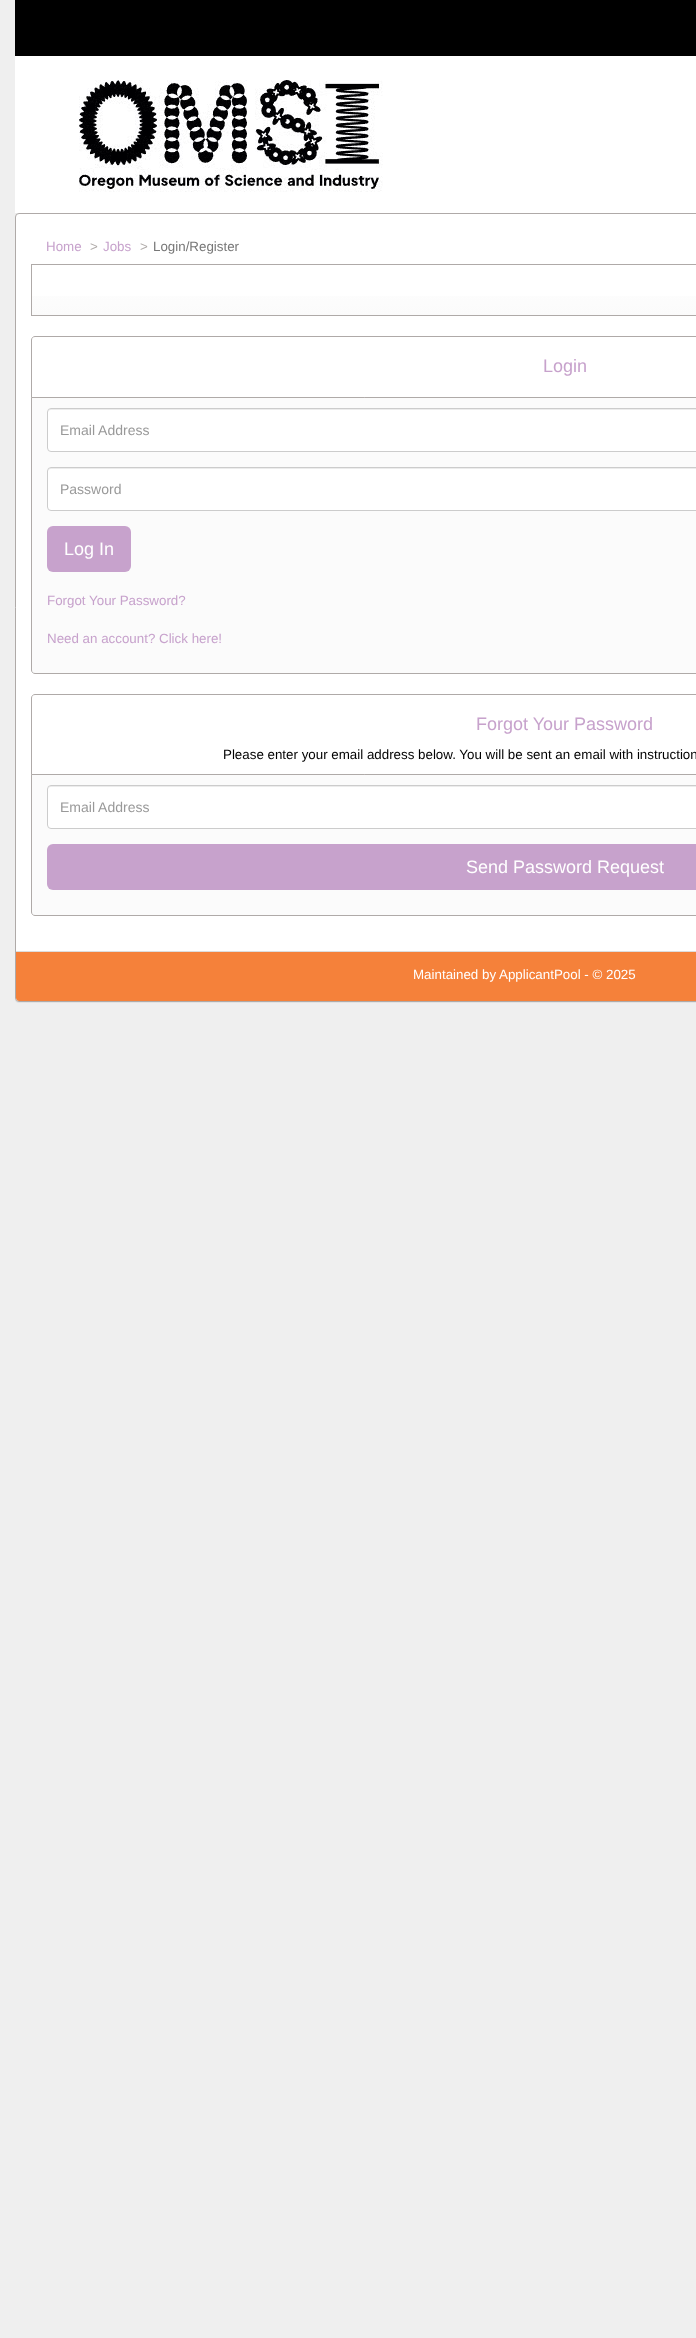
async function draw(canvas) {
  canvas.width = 696
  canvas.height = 2338
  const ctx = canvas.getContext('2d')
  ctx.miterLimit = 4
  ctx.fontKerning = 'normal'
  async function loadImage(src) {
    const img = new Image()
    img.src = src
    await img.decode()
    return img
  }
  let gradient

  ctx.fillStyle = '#efefef'
  ctx.fillRect(0, 0, 696, 2338)
  ctx.fillStyle = '#fff'
  ctx.fillRect(15, 192, 681, 21)
  ctx.drawImage(await loadImage('image0.png'), 15, 0, 681, 192)
  ctx.fillStyle = '#0000000d'
  ctx.filter = 'blur(0.5px)'
  ctx.beginPath()
  ctx.roundRect(15, 214, 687, 789, 4)
  ctx.fill()
  ctx.filter = 'none'
  ctx.fillStyle = '#fff'
  ctx.beginPath()
  ctx.roundRect(15.5, 213.5, 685, 788, 3.5)
  ctx.fill()
  ctx.strokeStyle = '#afaaa8'
  ctx.stroke()
  ctx.font = '13.35px Liberation Sans'
  ctx.fillStyle = '#c7a2cc'
  ctx.fillText('Home', 46, 251)
  ctx.fillStyle = '#afaaa8'
  ctx.fillText('>', 90, 251)
  ctx.fillStyle = '#c7a2cc'
  ctx.fillText('Jobs', 103, 251)
  ctx.fillStyle = '#afaaa8'
  ctx.fillText('>', 140, 251)
  ctx.fillStyle = '#777'
  ctx.fillText('Login/Register', 153, 251)
  gradient = ctx.createLinearGradient(565, 265, 565, 315)
  gradient.addColorStop(0, '#fff')
  gradient.addColorStop(1, '#fbfbfb')
  ctx.fillStyle = gradient
  ctx.fillRect(32, 296, 664, 19)
  ctx.strokeRect(31.5, 264.5, 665, 51)
  ctx.beginPath()
  ctx.moveTo(35, 336.5)
  ctx.lineTo(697, 336.5)
  ctx.bezierCurveTo(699, 336.5, 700.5, 338, 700.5, 340)
  ctx.lineTo(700.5, 397.5)
  ctx.lineTo(31.5, 397.5)
  ctx.lineTo(31.5, 340)
  ctx.bezierCurveTo(31.5, 338, 33, 336.5, 35, 336.5)
  ctx.closePath()
  ctx.stroke()
  ctx.font = '18px Liberation Sans'
  ctx.fillStyle = '#c7a2cc'
  ctx.fillText('Login', 543, 372)
  ctx.fillStyle = '#fbfbfb'
  ctx.beginPath()
  ctx.moveTo(31.5, 397.5)
  ctx.lineTo(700.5, 397.5)
  ctx.lineTo(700.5, 670)
  ctx.bezierCurveTo(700.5, 672, 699, 673.5, 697, 673.5)
  ctx.lineTo(35, 673.5)
  ctx.bezierCurveTo(33, 673.5, 31.5, 672, 31.5, 670)
  ctx.closePath()
  ctx.fill()
  ctx.stroke()
  ctx.fillStyle = '#fff'
  ctx.beginPath()
  ctx.roundRect(47, 408, 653, 44, 4)
  ctx.fill()
  ctx.fillStyle = '#ececec'
  ctx.beginPath()
  ctx.moveTo(51, 410)
  ctx.lineTo(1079, 410)
  ctx.bezierCurveTo(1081, 410, 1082, 411, 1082, 413)
  ctx.bezierCurveTo(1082, 411, 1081, 409, 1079, 409)
  ctx.lineTo(51, 409)
  ctx.bezierCurveTo(49, 409, 48, 411, 48, 413)
  ctx.bezierCurveTo(48, 411, 49, 410, 51, 410)
  ctx.closePath()
  ctx.fill()
  ctx.beginPath()
  ctx.roundRect(47.5, 408.5, 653, 43, 3.5)
  ctx.strokeStyle = '#ccc'
  ctx.stroke()
  ctx.font = '14px Liberation Sans'
  ctx.fillStyle = '#999'
  ctx.fillText('Email Address', 60, 435)
  ctx.fillStyle = '#fff'
  ctx.beginPath()
  ctx.roundRect(47, 467, 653, 44, 4)
  ctx.fill()
  ctx.fillStyle = '#ececec'
  ctx.beginPath()
  ctx.moveTo(51, 469)
  ctx.lineTo(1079, 469)
  ctx.bezierCurveTo(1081, 469, 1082, 470, 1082, 472)
  ctx.bezierCurveTo(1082, 470, 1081, 468, 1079, 468)
  ctx.lineTo(51, 468)
  ctx.bezierCurveTo(49, 468, 48, 470, 48, 472)
  ctx.bezierCurveTo(48, 470, 49, 469, 51, 469)
  ctx.closePath()
  ctx.fill()
  ctx.beginPath()
  ctx.roundRect(47.5, 467.5, 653, 43, 3.5)
  ctx.stroke()
  ctx.fillStyle = '#999'
  ctx.fillText('Password', 60, 494)
  ctx.fillStyle = '#c7a2cc'
  ctx.beginPath()
  ctx.roundRect(47, 526, 84, 46, 6)
  ctx.fill()
  ctx.font = '18px Liberation Sans'
  ctx.fillStyle = '#fff'
  ctx.fillText('Log In', 64, 555)
  ctx.font = '13.35px Liberation Sans'
  ctx.fillStyle = '#c7a2cc'
  ctx.fillText('Forgot Your Password?', 47, 605)
  ctx.fillText('Need an account? Click here!', 47, 643)
  ctx.beginPath()
  ctx.moveTo(35, 694.5)
  ctx.lineTo(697, 694.5)
  ctx.bezierCurveTo(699, 694.5, 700.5, 696, 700.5, 698)
  ctx.lineTo(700.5, 774.5)
  ctx.lineTo(31.5, 774.5)
  ctx.lineTo(31.5, 698)
  ctx.bezierCurveTo(31.5, 696, 33, 694.5, 35, 694.5)
  ctx.closePath()
  ctx.strokeStyle = '#afaaa8'
  ctx.stroke()
  ctx.font = '18px Liberation Sans'
  ctx.fillText('Forgot Your Password', 476, 730)
  ctx.font = '13.35px Liberation Sans'
  ctx.fillStyle = '#000'
  ctx.fillText('Please enter your email address below. You will be sent an email with instruction', 223, 759)
  ctx.fillStyle = '#fbfbfb'
  ctx.beginPath()
  ctx.moveTo(31.5, 774.5)
  ctx.lineTo(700.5, 774.5)
  ctx.lineTo(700.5, 912)
  ctx.bezierCurveTo(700.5, 914, 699, 915.5, 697, 915.5)
  ctx.lineTo(35, 915.5)
  ctx.bezierCurveTo(33, 915.5, 31.5, 914, 31.5, 912)
  ctx.closePath()
  ctx.fill()
  ctx.stroke()
  ctx.fillStyle = '#fff'
  ctx.beginPath()
  ctx.roundRect(47, 785, 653, 44, 4)
  ctx.fill()
  ctx.fillStyle = '#ececec'
  ctx.beginPath()
  ctx.moveTo(51, 787)
  ctx.lineTo(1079, 787)
  ctx.bezierCurveTo(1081, 787, 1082, 788, 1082, 790)
  ctx.bezierCurveTo(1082, 788, 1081, 786, 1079, 786)
  ctx.lineTo(51, 786)
  ctx.bezierCurveTo(49, 786, 48, 788, 48, 790)
  ctx.bezierCurveTo(48, 788, 49, 787, 51, 787)
  ctx.closePath()
  ctx.fill()
  ctx.beginPath()
  ctx.roundRect(47.5, 785.5, 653, 43, 3.5)
  ctx.strokeStyle = '#ccc'
  ctx.stroke()
  ctx.font = '14px Liberation Sans'
  ctx.fillStyle = '#999'
  ctx.fillText('Email Address', 60, 812)
  ctx.fillStyle = '#c7a2cc'
  ctx.beginPath()
  ctx.roundRect(47, 844, 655, 46, 6)
  ctx.fill()
  ctx.font = '18px Liberation Sans'
  ctx.fillStyle = '#fff'
  ctx.fillText('Send Password Request', 466, 873)
  ctx.fillStyle = '#f5813a'
  ctx.beginPath()
  ctx.moveTo(16, 951)
  ctx.lineTo(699, 951)
  ctx.lineTo(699, 998)
  ctx.bezierCurveTo(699, 999.5, 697.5, 1001, 696, 1001)
  ctx.lineTo(19, 1001)
  ctx.bezierCurveTo(17.5, 1001, 16, 999.5, 16, 998)
  ctx.closePath()
  ctx.fill()
  ctx.fillStyle = '#ddd'
  ctx.fillRect(16, 951, 680, 1)
  ctx.font = '13.35px Liberation Sans'
  ctx.fillStyle = '#fff'
  ctx.fillText('Maintained by', 413, 979)
  ctx.fillText('ApplicantPool - © 2025', 499, 979)
}

draw(document.querySelector('canvas'))
